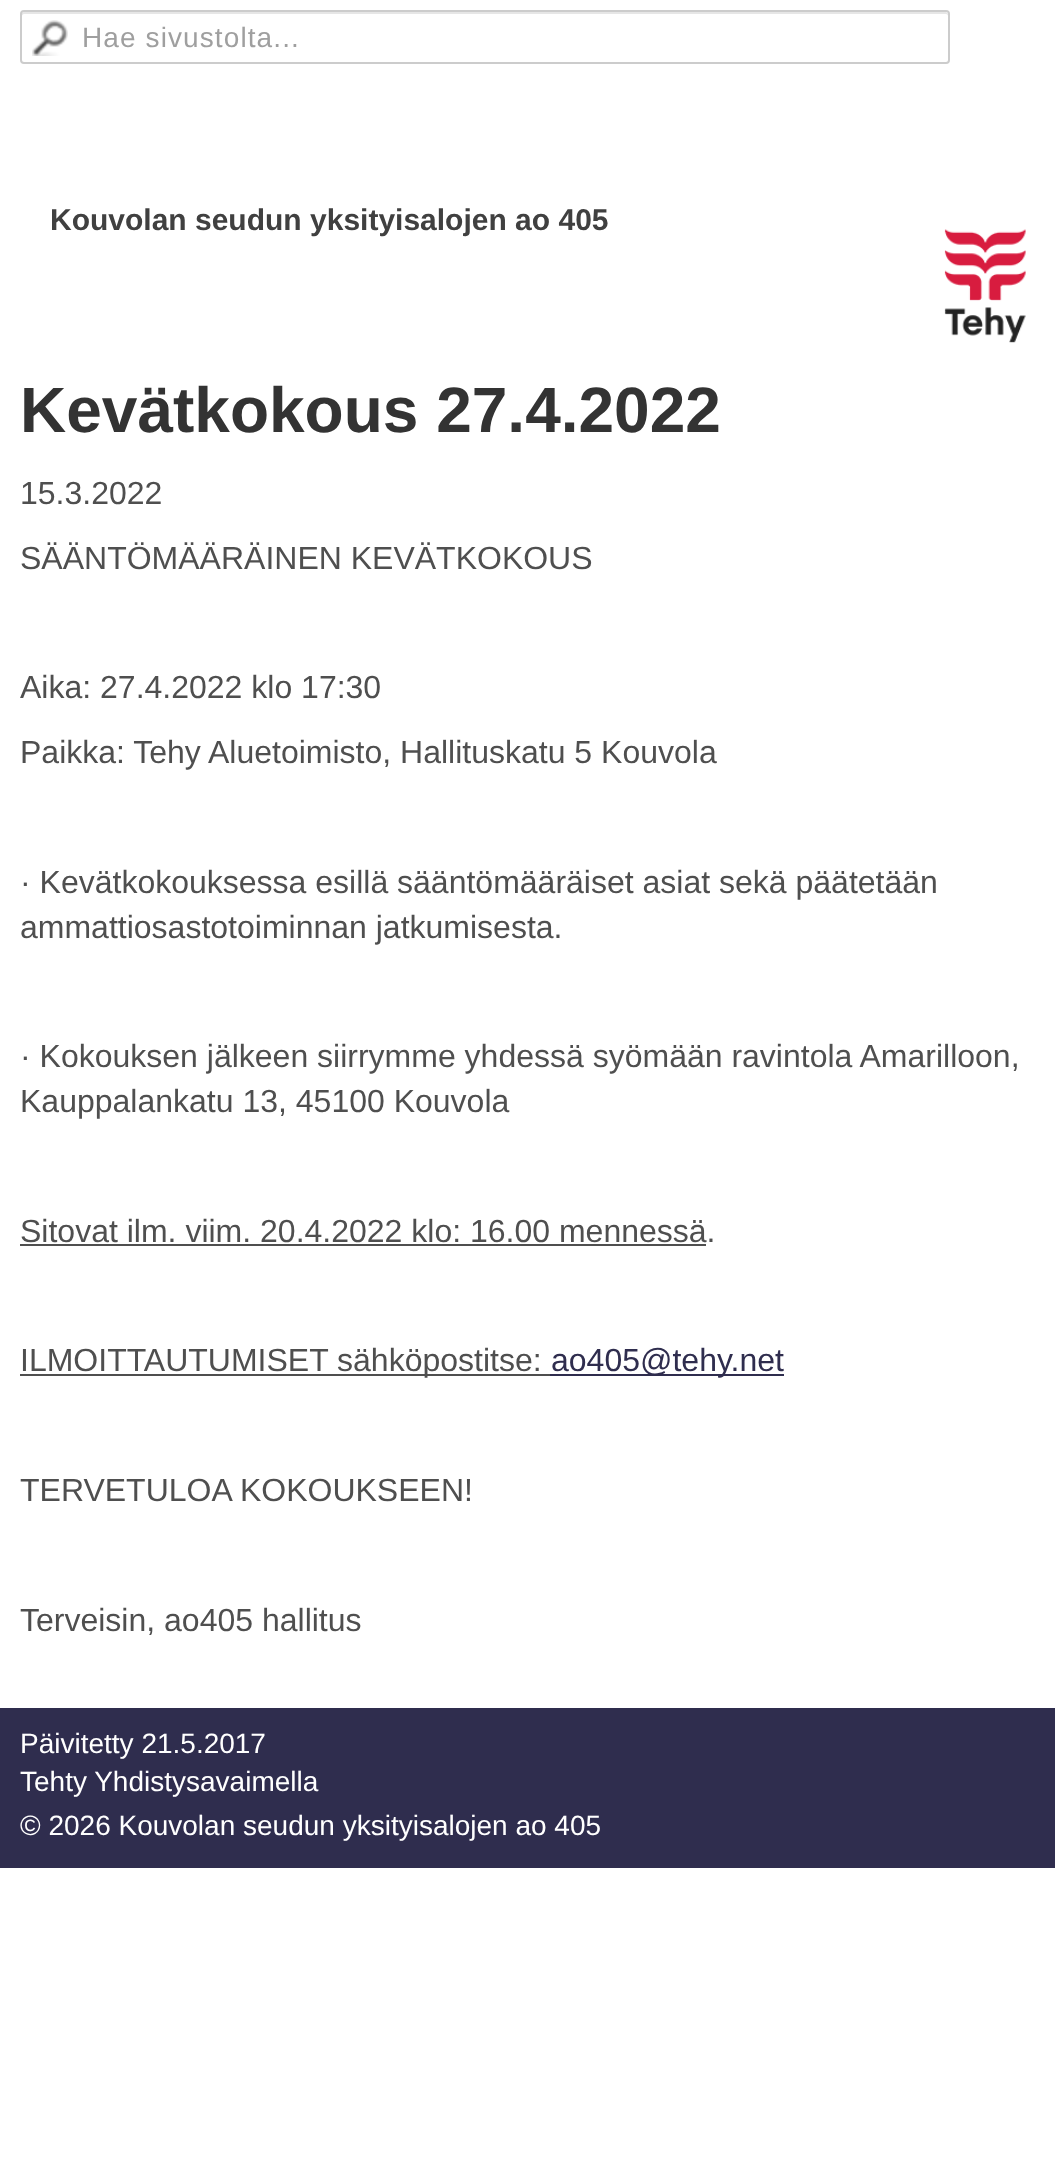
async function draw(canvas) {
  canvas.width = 1055
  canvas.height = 2163
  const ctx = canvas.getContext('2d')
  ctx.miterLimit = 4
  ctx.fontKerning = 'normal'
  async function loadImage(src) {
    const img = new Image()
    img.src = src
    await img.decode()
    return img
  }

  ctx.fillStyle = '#fff'
  ctx.fillRect(0, 0, 1055, 2163)
  ctx.drawImage(await loadImage('image0.png'), 32, 20, 36, 36)
  ctx.fillStyle = '#e6e6e6'
  ctx.beginPath()
  ctx.moveTo(24, 14)
  ctx.lineTo(946, 14)
  ctx.bezierCurveTo(947, 14, 948, 15, 948, 16)
  ctx.bezierCurveTo(948, 15, 948, 13, 947, 13)
  ctx.lineTo(946, 12)
  ctx.lineTo(24, 12)
  ctx.lineTo(22, 13)
  ctx.lineTo(22, 16)
  ctx.bezierCurveTo(22, 15, 23, 14, 24, 14)
  ctx.closePath()
  ctx.fill()
  ctx.beginPath()
  ctx.roundRect(21, 11, 928, 52, 3)
  ctx.strokeStyle = '#ccc'
  ctx.lineWidth = 2
  ctx.stroke()
  ctx.letterSpacing = '1.1px'
  ctx.font = '28px Liberation Sans'
  ctx.fillStyle = '#9f9f9f'
  ctx.fillText('Hae sivustolta...', 82, 47)
  ctx.drawImage(await loadImage('image1.png'), 944, 229, 82, 114)
  ctx.letterSpacing = '0px'
  ctx.font = 'bold 30px Liberation Sans'
  ctx.fillStyle = '#404040'
  ctx.fillText('Kouvolan seudun yksityisalojen ao 405', 50, 230)
  ctx.font = 'bold 64px Liberation Sans'
  ctx.fillStyle = '#333'
  ctx.fillText('Kevätkokous 27.4.2022', 20, 432)
  ctx.font = '32px Liberation Sans'
  ctx.fillStyle = '#4f4f4f'
  ctx.fillText('15.3.2022', 20, 504)
  ctx.fillText('SÄÄNTÖMÄÄRÄINEN KEVÄTKOKOUS', 20, 569)
  ctx.fillText('Aika: 27.4.2022 klo 17:30', 20, 698)
  ctx.fillText('Paikka: Tehy Aluetoimisto, Hallituskatu 5 Kouvola', 20, 763)
  ctx.fillText('· Kevätkokouksessa esillä sääntömääräiset asiat sekä päätetään', 20, 893)
  ctx.fillText('ammattiosastotoiminnan jatkumisesta.', 20, 938)
  ctx.fillText('· Kokouksen jälkeen siirrymme yhdessä syömään ravintola Amarilloon,', 20, 1067)
  ctx.fillText('Kauppalankatu 13, 45100 Kouvola', 20, 1112)
  ctx.fillText('Sitovat ilm. viim. 20.4.2022 klo: 16.00 mennessä.', 20, 1242)
  ctx.fillRect(20, 1244, 686, 2)
  ctx.fillRect(20, 1374, 530, 2)
  ctx.fillText('ILMOITTAUTUMISET sähköpostitse:', 20, 1371)
  ctx.fillStyle = '#2f2d4e'
  ctx.fillRect(550, 1374, 234, 2)
  ctx.fillText('ao405@tehy.net', 551, 1371)
  ctx.fillStyle = '#4f4f4f'
  ctx.fillText('TERVETULOA KOKOUKSEEN!', 20, 1501)
  ctx.fillText('Terveisin, ao405 hallitus', 20, 1631)
  ctx.fillStyle = '#2f2d4e'
  ctx.fillRect(0, 1708, 1055, 160)
  ctx.font = '28px Liberation Sans'
  ctx.fillStyle = '#fff'
  ctx.fillText('Päivitetty 21.5.2017', 20, 1753)
  ctx.fillText('Tehty Yhdistysavaimella', 20, 1791)
  ctx.fillText('© 2026 Kouvolan seudun yksityisalojen ao 405', 20, 1835)
}

draw(document.querySelector('canvas'))
